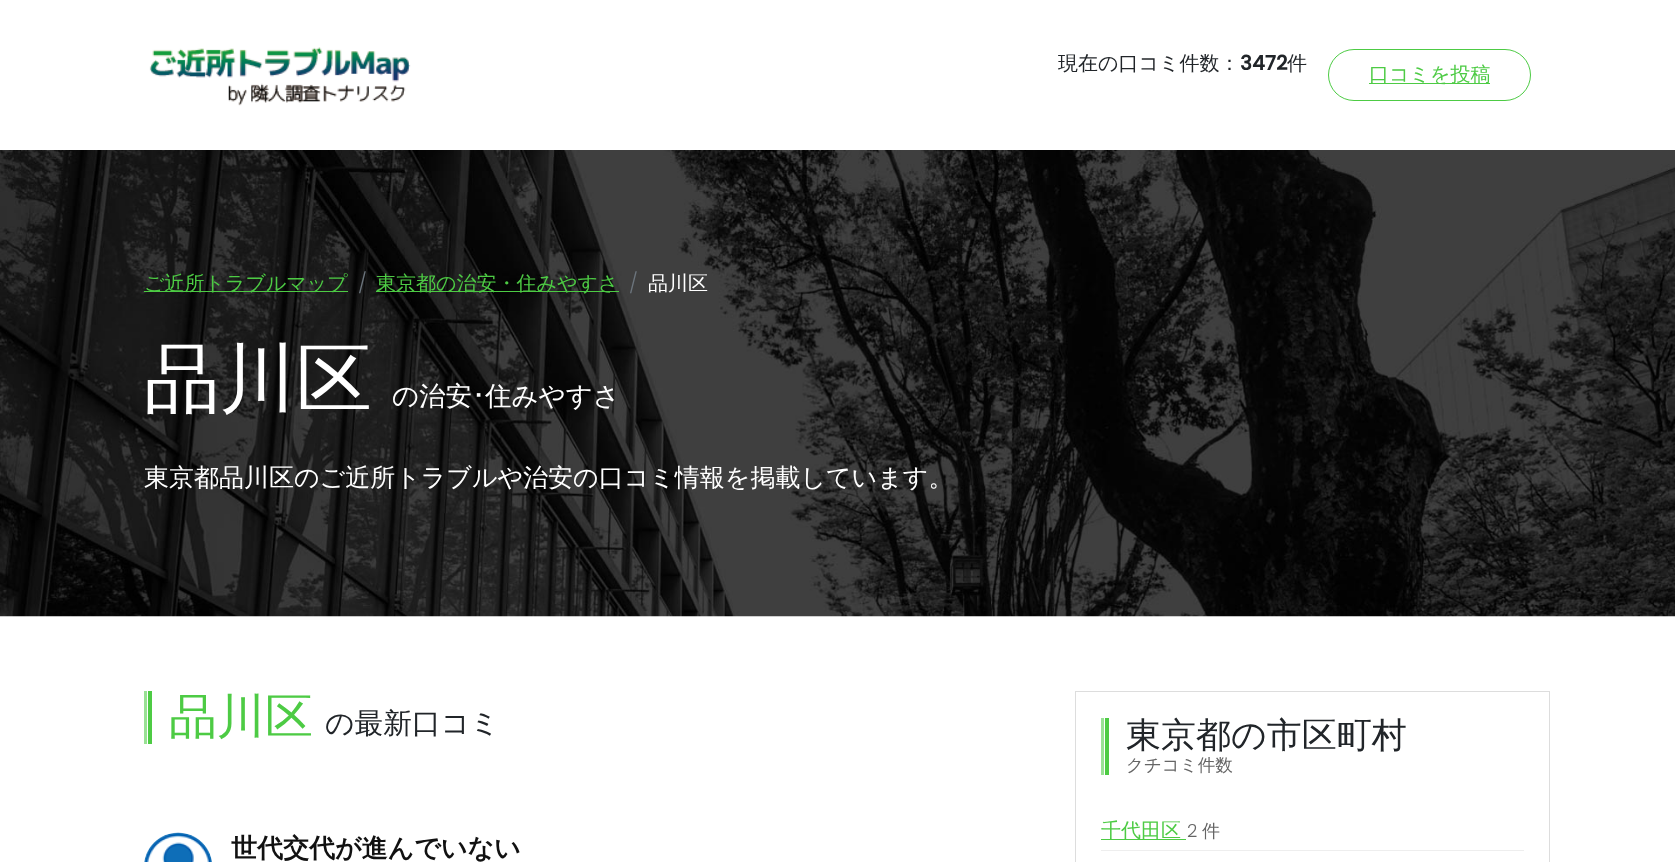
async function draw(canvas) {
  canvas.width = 1675
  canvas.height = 862
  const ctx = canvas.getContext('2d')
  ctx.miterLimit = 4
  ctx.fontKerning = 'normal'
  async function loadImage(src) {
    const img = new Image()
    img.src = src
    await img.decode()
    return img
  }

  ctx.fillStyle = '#fff'
  ctx.fillRect(0, 0, 1675, 862)
  ctx.drawImage(await loadImage('image0.png'), 149, 47, 262, 59)
  ctx.font = '500 20px WenQuanYi Zen Hei'
  ctx.fillStyle = '#212529'
  ctx.fillText('現在の口コミ件数：', 1058, 70)
  ctx.font = 'bold 20px Poppins'
  ctx.fillText('3472', 1240, 70)
  ctx.font = '500 20px WenQuanYi Zen Hei'
  ctx.fillText('件', 1287, 70)
  ctx.beginPath()
  ctx.roundRect(1328.5, 49.5, 202, 51, 25.5)
  ctx.strokeStyle = '#4dcb44'
  ctx.stroke()
  ctx.fillStyle = '#4dcb44'
  ctx.fillRect(1369, 83, 121, 1)
  ctx.fillText('口コミを投稿', 1369, 81)
  ctx.drawImage(await loadImage('image1.png'), 0, 150, 1675, 467)
  ctx.fillRect(144, 291, 204, 1)
  ctx.fillText('ご近所トラブルマップ', 144, 290)
  ctx.font = '300 20px Poppins'
  ctx.fillStyle = '#6c757d'
  ctx.fillText('/', 358, 290)
  ctx.fillStyle = '#4dcb44'
  ctx.fillRect(376, 291, 243, 1)
  ctx.font = '500 20px WenQuanYi Zen Hei'
  ctx.fillText('東京都の治安・住みやすさ', 376, 290)
  ctx.font = '300 20px Poppins'
  ctx.fillStyle = '#6c757d'
  ctx.fillText('/', 629, 290)
  ctx.font = '500 20px WenQuanYi Zen Hei'
  ctx.fillStyle = '#fff'
  ctx.fillText('品川区', 648, 290)
  ctx.font = '500 76px WenQuanYi Zen Hei'
  ctx.fillText('品川区', 144, 405)
  ctx.font = '500 26.5px WenQuanYi Zen Hei'
  ctx.fillText('の治安', 392, 405)
  ctx.font = '26.5px IPAGothic'
  ctx.fillText('･', 472, 405)
  ctx.font = '500 26.5px WenQuanYi Zen Hei'
  ctx.fillText('住みやすさ', 485, 405)
  ctx.font = '500 25px WenQuanYi Zen Hei'
  ctx.fillText('東京都品川区のご近所トラブルや治安の口コミ情報を掲載しています。', 144, 486)
  ctx.fillStyle = '#99e194'
  ctx.fillRect(144, 691, 3, 53)
  ctx.fillStyle = '#4dcb44'
  ctx.fillRect(148, 691, 4, 53)
  ctx.font = '500 48px WenQuanYi Zen Hei'
  ctx.fillText('品川区', 169, 733)
  ctx.font = '500 28.75px WenQuanYi Zen Hei'
  ctx.fillStyle = '#212529'
  ctx.fillText('の最新口コミ', 325, 733)
  ctx.drawImage(await loadImage('image2.png'), 144, 832, 68, 30)
  ctx.font = 'bold 26px WenQuanYi Zen Hei'
  ctx.fillStyle = '#111'
  ctx.fillText('世代交代が進んでいない', 231, 857)
  ctx.strokeStyle = '#ddd'
  ctx.strokeRect(1075.5, 691.5, 474, 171)
  ctx.fillStyle = '#99e194'
  ctx.fillRect(1101, 718, 3, 57)
  ctx.fillStyle = '#4dcb44'
  ctx.fillRect(1105, 718, 4, 57)
  ctx.font = '500 35px WenQuanYi Zen Hei'
  ctx.fillStyle = '#212529'
  ctx.fillText('東京都の市区町村', 1126, 747)
  ctx.font = '500 17.5px WenQuanYi Zen Hei'
  ctx.fillStyle = '#656565'
  ctx.fillText('クチコミ件数', 1126, 771)
  ctx.fillStyle = '#eee'
  ctx.fillRect(1101, 850, 423, 1)
  ctx.fillStyle = '#4dcb44'
  ctx.fillRect(1101, 839, 85, 1)
  ctx.font = '500 20px WenQuanYi Zen Hei'
  ctx.fillText('千代田区', 1101, 837)
  ctx.font = '300 18px Poppins'
  ctx.fillStyle = '#656565'
  ctx.fillText('2', 1187, 837)
  ctx.font = '500 18px WenQuanYi Zen Hei'
  ctx.fillText('件', 1202, 837)
}

draw(document.querySelector('canvas'))
